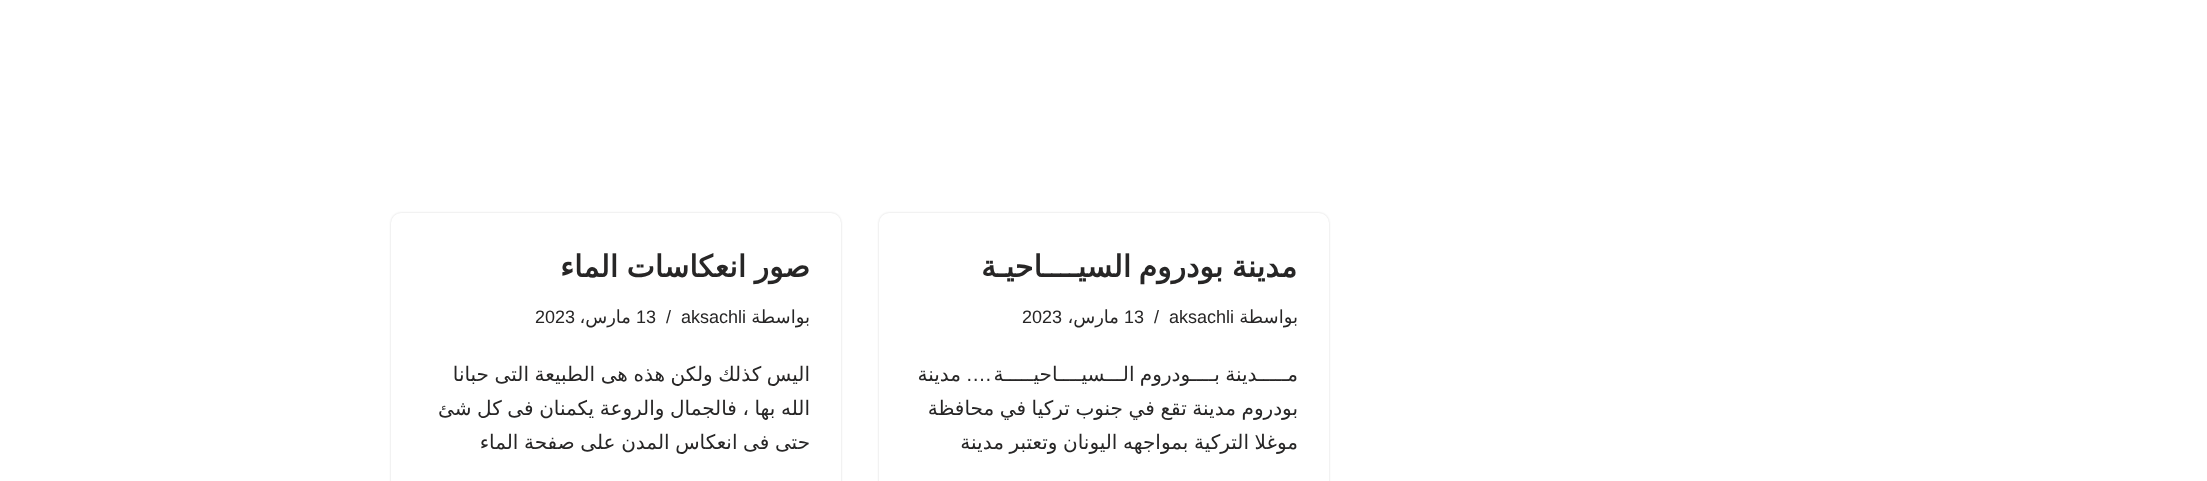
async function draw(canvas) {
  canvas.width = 2207
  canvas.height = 481
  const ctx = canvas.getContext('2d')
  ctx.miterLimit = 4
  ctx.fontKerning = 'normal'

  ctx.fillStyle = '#fff'
  ctx.fillRect(0, 0, 2207, 481)
  ctx.fillStyle = '#00000026'
  ctx.filter = 'blur(1px)'
  ctx.beginPath()
  ctx.roundRect(879, 213, 450, 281, 10)
  ctx.fill()
  ctx.filter = 'none'
  ctx.fillStyle = '#fff'
  ctx.beginPath()
  ctx.roundRect(879, 213, 450, 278, 10)
  ctx.fill()
  ctx.wordSpacing = '-1px'
  ctx.direction = 'rtl'
  ctx.font = 'bold 30px DejaVu Sans'
  ctx.fillStyle = '#272626'
  ctx.fillText('مدينة بودروم', 1297, 277)
  ctx.wordSpacing = '0px'
  ctx.fillText('السيــــاحيـة', 1131, 277)
  ctx.font = '18px DejaVu Sans'
  ctx.fillText('بواسطة', 1298, 323)
  ctx.direction = 'ltr'
  ctx.font = '18px Liberation Sans'
  ctx.fillText('aksachli', 1169, 323)
  ctx.fillText('/', 1154, 323)
  ctx.fillText('13', 1124, 323)
  ctx.direction = 'rtl'
  ctx.font = '18px DejaVu Sans'
  ctx.fillText('مارس،', 1119, 323)
  ctx.direction = 'ltr'
  ctx.font = '18px Liberation Sans'
  ctx.fillText('2023', 1022, 323)
  ctx.wordSpacing = '-1px'
  ctx.direction = 'rtl'
  ctx.font = '20px DejaVu Sans'
  ctx.fillText('مـــــدينة بــــودروم الـــسيــــاحيـــــة', 1298, 381)
  ctx.wordSpacing = '0px'
  ctx.font = '20px Liberation Sans'
  ctx.fillText('….', 992, 381)
  ctx.font = '20px DejaVu Sans'
  ctx.fillText('مدينة', 961, 381)
  ctx.wordSpacing = '-0.75px'
  ctx.fillText('بودروم مدينة تقع في جنوب تركيا في محافظة', 1298, 415)
  ctx.fillText('موغلا التركية بمواجهه اليونان وتعتبر مدينة', 1298, 449)
  ctx.fillStyle = '#00000026'
  ctx.filter = 'blur(1px)'
  ctx.beginPath()
  ctx.roundRect(391, 213, 450, 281, 10)
  ctx.fill()
  ctx.filter = 'none'
  ctx.fillStyle = '#fff'
  ctx.beginPath()
  ctx.roundRect(391, 213, 450, 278, 10)
  ctx.fill()
  ctx.wordSpacing = '-1px'
  ctx.font = 'bold 30px DejaVu Sans'
  ctx.fillStyle = '#272626'
  ctx.fillText('صور انعكاسات الماء', 810, 277)
  ctx.wordSpacing = '0px'
  ctx.font = '18px DejaVu Sans'
  ctx.fillText('بواسطة', 810, 323)
  ctx.direction = 'ltr'
  ctx.font = '18px Liberation Sans'
  ctx.fillText('aksachli', 681, 323)
  ctx.fillText('/', 666, 323)
  ctx.fillText('13', 636, 323)
  ctx.direction = 'rtl'
  ctx.font = '18px DejaVu Sans'
  ctx.fillText('مارس،', 631, 323)
  ctx.direction = 'ltr'
  ctx.font = '18px Liberation Sans'
  ctx.fillText('2023', 535, 323)
  ctx.wordSpacing = '-0.75px'
  ctx.direction = 'rtl'
  ctx.font = '20px DejaVu Sans'
  ctx.fillText('اليس كذلك ولكن هذه هى الطبيعة التى حبانا', 810, 381)
  ctx.fillText('الله بها ، فالجمال والروعة يكمنان فى كل شئ', 810, 415)
  ctx.fillText('حتى فى انعكاس المدن على صفحة الماء', 810, 449)
}

draw(document.querySelector('canvas'))
